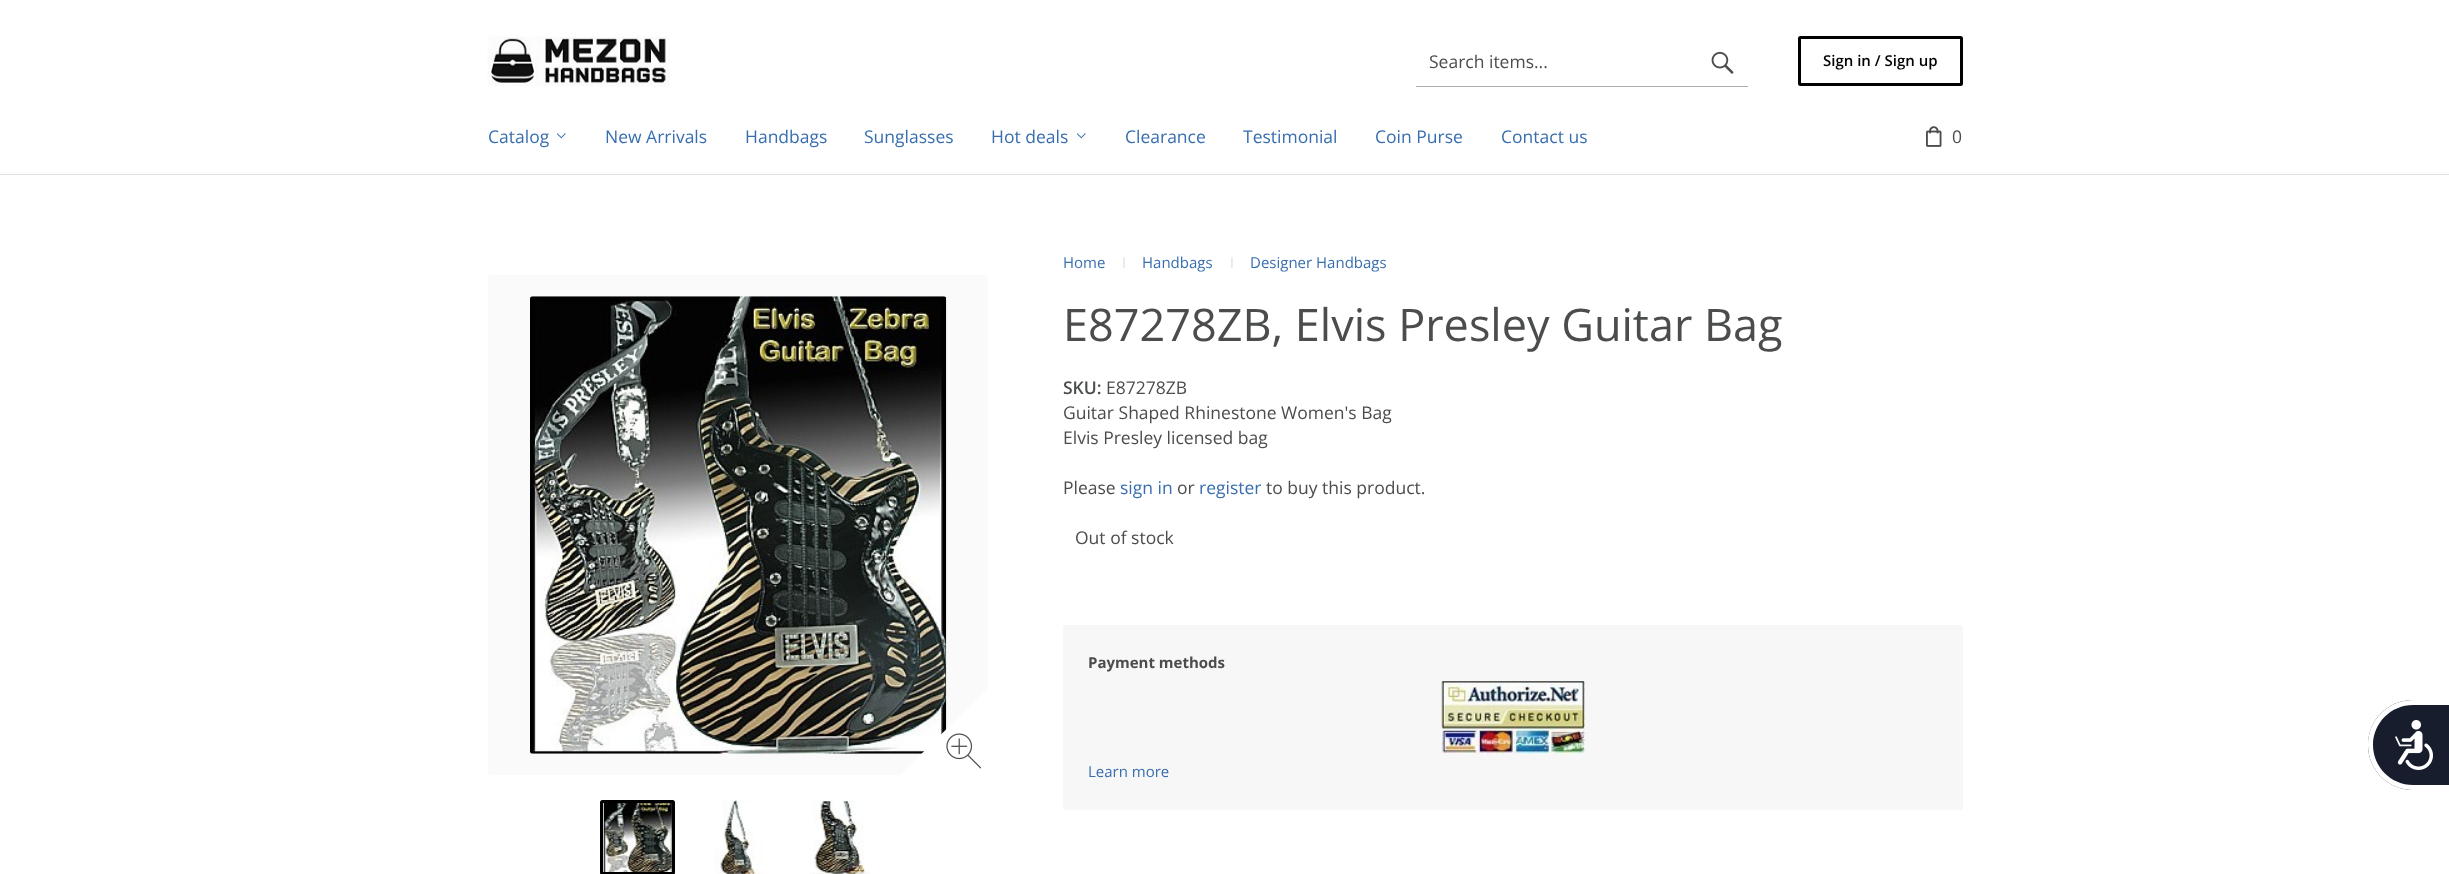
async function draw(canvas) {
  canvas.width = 2449
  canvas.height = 874
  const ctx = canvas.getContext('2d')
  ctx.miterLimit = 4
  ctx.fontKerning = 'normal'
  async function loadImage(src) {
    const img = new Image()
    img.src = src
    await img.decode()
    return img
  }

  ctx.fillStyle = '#fff'
  ctx.fillRect(0, 0, 2449, 874)
  ctx.fillStyle = '#e2e2e2'
  ctx.fillRect(0, 174, 2449, 1)
  ctx.drawImage(await loadImage('image0.png'), 487, 36, 183, 51)
  ctx.fillStyle = '#ababab'
  ctx.fillRect(1416, 86, 332, 1)
  ctx.font = '17.5px Open Sans'
  ctx.fillStyle = '#4b4d4d'
  ctx.fillText('Search items...', 1429, 68)
  ctx.drawImage(await loadImage('image1.png'), 1711, 51, 23, 23)
  ctx.beginPath()
  ctx.roundRect(1799.5, 37.5, 162, 47, 1)
  ctx.strokeStyle = '#000'
  ctx.lineWidth = 3
  ctx.stroke()
  ctx.font = '600 15px Open Sans'
  ctx.fillStyle = '#000'
  ctx.fillText('Sign in / Sign up', 1823, 66)
  ctx.font = '17.5px Open Sans'
  ctx.fillStyle = '#386eaf'
  ctx.fillText('Catalog', 488, 143)
  ctx.drawImage(await loadImage('image2.png'), 556, 133, 10, 6)
  ctx.fillText('New Arrivals', 605, 143)
  ctx.fillText('Handbags', 745, 143)
  ctx.fillText('Sunglasses', 864, 143)
  ctx.fillText('Hot deals', 991, 143)
  ctx.drawImage(await loadImage('image2.png'), 1076, 133, 10, 6)
  ctx.fillText('Clearance', 1125, 143)
  ctx.fillText('Testimonial', 1243, 143)
  ctx.fillText('Coin Purse', 1375, 143)
  ctx.fillText('Contact us', 1501, 143)
  ctx.drawImage(await loadImage('image3.png'), 1926, 126, 16, 21)
  ctx.fillStyle = '#4b4d4d'
  ctx.fillText('0', 1952, 143)
  ctx.fillStyle = '#fafafa'
  ctx.beginPath()
  ctx.roundRect(488, 275, 500, 500, 2.5)
  ctx.fill()
  ctx.drawImage(await loadImage('image4.png'), 530, 296, 417, 458)
  ctx.fillStyle = '#fff'
  ctx.beginPath()
  ctx.moveTo(988, 775)
  ctx.lineTo(900, 775)
  ctx.lineTo(988, 688)
  ctx.closePath()
  ctx.fill()
  ctx.drawImage(await loadImage('image5.png'), 946, 733, 36, 36)
  ctx.drawImage(await loadImage('image6.png'), 603, 800, 70, 72)
  ctx.beginPath()
  ctx.roundRect(601.5, 801.5, 72, 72, 1)
  ctx.stroke()
  ctx.drawImage(await loadImage('image7.png'), 715, 800, 49, 74)
  ctx.drawImage(await loadImage('image8.png'), 809, 800, 61, 74)
  ctx.font = '15px Open Sans'
  ctx.fillStyle = '#386eaf'
  ctx.fillText('Home', 1063, 268)
  ctx.font = '15px Liberation Sans'
  ctx.fillStyle = '#e2e2e2'
  ctx.fillText('ǀ', 1122, 268)
  ctx.font = '15px Open Sans'
  ctx.fillStyle = '#386eaf'
  ctx.fillText('Handbags', 1142, 268)
  ctx.font = '15px Liberation Sans'
  ctx.fillStyle = '#e2e2e2'
  ctx.fillText('ǀ', 1230, 268)
  ctx.font = '15px Open Sans'
  ctx.fillStyle = '#386eaf'
  ctx.fillText('Designer Handbags', 1250, 268)
  ctx.font = '45px Open Sans'
  ctx.fillStyle = '#4b4d4d'
  ctx.fillText('E87278ZB, Elvis Presley Guitar Bag', 1063, 341)
  ctx.font = '600 17.5px Open Sans'
  ctx.fillText('SKU:', 1063, 394)
  ctx.font = '17.5px Open Sans'
  ctx.fillText('E87278ZB', 1106, 394)
  ctx.fillText('Guitar Shaped Rhinestone Women\'s Bag', 1063, 419)
  ctx.fillText('Elvis Presley licensed bag', 1063, 444)
  ctx.fillText('Please', 1063, 494)
  ctx.fillStyle = '#386eaf'
  ctx.fillText('sign in', 1120, 494)
  ctx.fillStyle = '#4b4d4d'
  ctx.fillText('or', 1177, 494)
  ctx.fillStyle = '#386eaf'
  ctx.fillText('register', 1199, 494)
  ctx.fillStyle = '#4b4d4d'
  ctx.fillText('to buy this product.', 1266, 494)
  ctx.fillText('Out of stock', 1075, 544)
  ctx.fillStyle = '#f7f7f7'
  ctx.beginPath()
  ctx.roundRect(1063, 625, 900, 185, 2.5)
  ctx.fill()
  ctx.font = 'bold 15px Open Sans'
  ctx.fillStyle = '#4b4d4d'
  ctx.fillText('Payment methods', 1088, 668)
  ctx.drawImage(await loadImage('image9.png'), 1441, 681, 144, 73)
  ctx.font = '15px Open Sans'
  ctx.fillStyle = '#386eaf'
  ctx.fillText('Learn more', 1088, 777)
  ctx.fillStyle = '#171d2d'
  ctx.beginPath()
  ctx.moveTo(2413, 700)
  ctx.lineTo(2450, 700)
  ctx.lineTo(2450, 790)
  ctx.lineTo(2413, 790)
  ctx.bezierCurveTo(2388, 790, 2368, 770, 2368, 745)
  ctx.bezierCurveTo(2368, 720, 2388, 700, 2413, 700)
  ctx.closePath()
  ctx.fill()
  ctx.fillStyle = '#fff'
  ctx.beginPath()
  ctx.moveTo(2413, 700)
  ctx.lineTo(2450, 700)
  ctx.lineTo(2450, 790)
  ctx.lineTo(2413, 790)
  ctx.bezierCurveTo(2388, 790, 2368, 770, 2368, 745)
  ctx.bezierCurveTo(2368, 720, 2388, 700, 2413, 700)
  ctx.closePath()
  ctx.moveTo(2413, 705)
  ctx.lineTo(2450, 705)
  ctx.lineTo(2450, 785)
  ctx.lineTo(2413, 785)
  ctx.bezierCurveTo(2391, 785, 2373, 767, 2373, 745)
  ctx.bezierCurveTo(2373, 723, 2391, 705, 2413, 705)
  ctx.closePath()
  ctx.fill('evenodd')
  ctx.drawImage(await loadImage('image10.png'), 2395, 720, 38, 50)
}

draw(document.querySelector('canvas'))
